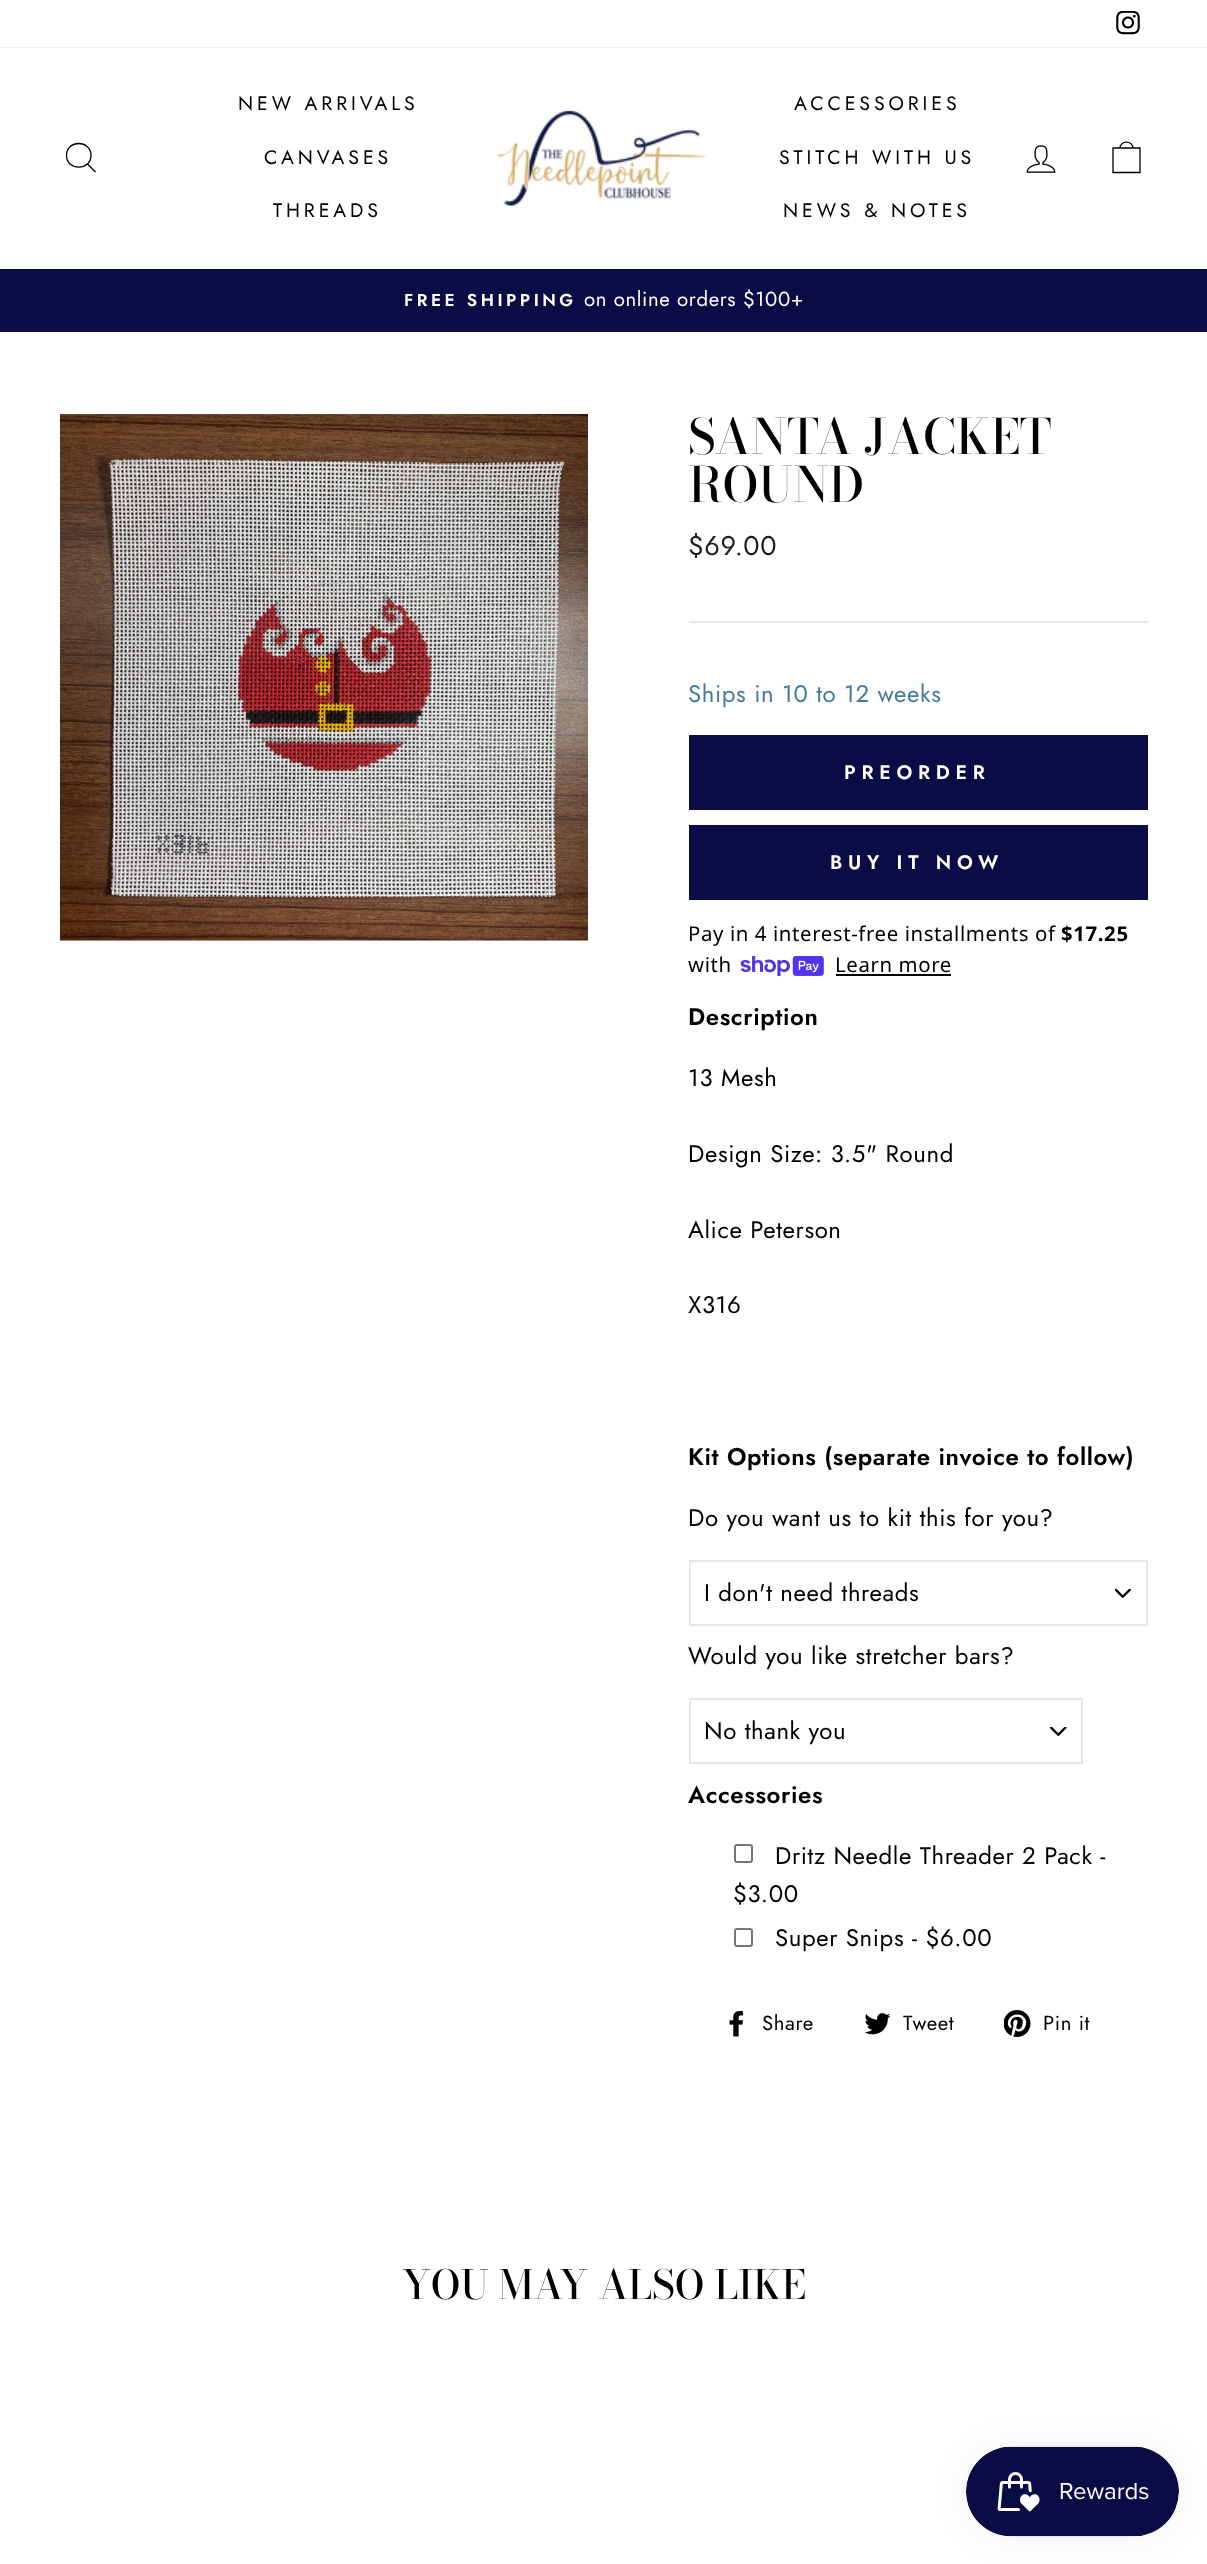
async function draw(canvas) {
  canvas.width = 1207
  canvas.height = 2564
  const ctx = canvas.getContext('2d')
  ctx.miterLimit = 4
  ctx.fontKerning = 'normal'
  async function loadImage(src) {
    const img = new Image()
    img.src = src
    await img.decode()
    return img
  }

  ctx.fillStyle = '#fff'
  ctx.fillRect(0, 0, 1207, 2564)
  ctx.drawImage(await loadImage('image0.png'), 1116, 11, 24, 24)
  ctx.fillStyle = '#0b0b45'
  ctx.fillRect(0, 269, 1207, 63)
  ctx.fillStyle = '#00000033'
  ctx.filter = 'blur(1px)'
  ctx.beginPath()
  ctx.rect(0, 48, 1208, 221)
  ctx.fill()
  ctx.filter = 'none'
  ctx.fillStyle = '#fff'
  ctx.fillRect(0, 48, 1207, 221)
  ctx.beginPath()
  ctx.moveTo(91, 155.5)
  ctx.bezierCurveTo(91, 171, 66.5, 171, 66.5, 155.5)
  ctx.bezierCurveTo(66.5, 139.5, 91, 139.5, 91, 155.5)
  ctx.closePath()
  ctx.moveTo(95.5, 172)
  ctx.lineTo(87.5, 164)
  ctx.strokeStyle = '#000'
  ctx.lineWidth = 1.3
  ctx.stroke()
  ctx.letterSpacing = '3.9px'
  ctx.font = '19.5px Jost'
  ctx.fillStyle = '#000'
  ctx.fillText('NEW ARRIVALS', 238, 110)
  ctx.fillText('CANVASES', 264, 164)
  ctx.fillText('THREADS', 273, 217)
  ctx.drawImage(await loadImage('image1.png'), 497, 110, 211, 96)
  ctx.fillText('ACCESSORIES', 794, 110)
  ctx.fillText('STITCH WITH US', 779, 164)
  ctx.fillText('NEWS & NOTES', 783, 217)
  ctx.drawImage(await loadImage('image2.png'), 1026, 145, 30, 28)
  ctx.beginPath()
  ctx.moveTo(1113, 148)
  ctx.lineTo(1140, 148)
  ctx.lineTo(1140, 172.5)
  ctx.lineTo(1113, 172.5)
  ctx.closePath()
  ctx.moveTo(1120, 148.5)
  ctx.bezierCurveTo(1120, 140, 1133, 140, 1133, 148.5)
  ctx.stroke()
  ctx.letterSpacing = '3.5px'
  ctx.font = '600 17.25px Jost'
  ctx.fillStyle = '#fff'
  ctx.fillText('FREE SHIPPING', 404, 306)
  ctx.letterSpacing = '0.6px'
  ctx.font = '20.4px Jost'
  ctx.fillText('on online orders $100+', 584, 306)
  ctx.drawImage(await loadImage('image3.png'), 60, 414, 528, 527)
  ctx.letterSpacing = '0px'
  ctx.font = '500 48.5px Bodoni Moda'
  ctx.fillStyle = '#000'
  ctx.fillText('SANTA JACKET', 688, 454)
  ctx.fillText('ROUND', 688, 502)
  ctx.letterSpacing = '0.6px'
  ctx.font = '27px Jost'
  ctx.fillStyle = '#1c1d1d'
  ctx.fillText('$69.00', 688, 555)
  ctx.fillStyle = '#e8e8e1'
  ctx.fillRect(689, 621, 459, 2)
  ctx.font = '24px Jost'
  ctx.fillStyle = '#467c99'
  ctx.fillText('Ships in 10 to 12 weeks', 688, 702)
  ctx.fillStyle = '#0b0b45'
  ctx.fillRect(689, 735, 459, 75)
  ctx.letterSpacing = '5.75px'
  ctx.font = '600 19.5px Jost'
  ctx.fillStyle = '#fff'
  ctx.fillText('PREORDER', 844, 779)
  ctx.fillStyle = '#0b0b45'
  ctx.fillRect(689, 825, 459, 75)
  ctx.fillStyle = '#fff'
  ctx.fillText('BUY IT NOW', 830, 869)
  ctx.letterSpacing = '0.6px'
  ctx.font = '20.4px Noto Sans'
  ctx.fillStyle = '#000'
  ctx.fillText('Pay in 4 interest-free installments of', 688, 941)
  ctx.font = 'bold 20.4px Noto Sans'
  ctx.fillText('$17.25', 1061, 941)
  ctx.font = '20.4px Noto Sans'
  ctx.fillText('with', 688, 972)
  ctx.drawImage(await loadImage('image4.png'), 740, 956, 84, 21)
  ctx.fillText('Learn more', 835, 972)
  ctx.fillRect(836, 974, 115, 2)
  ctx.font = '600 24px Jost'
  ctx.fillText('Description', 688, 1025)
  ctx.font = '24px Jost'
  ctx.fillText('13 Mesh', 688, 1086)
  ctx.fillText('Design Size: 3.5" Round', 688, 1162)
  ctx.fillText('Alice Peterson', 688, 1238)
  ctx.fillText('X316', 688, 1313)
  ctx.font = '600 24px Jost'
  ctx.fillText('Kit Options (separate invoice to follow)', 688, 1465)
  ctx.font = '24px Jost'
  ctx.fillText('Do you want us to kit this for you?', 688, 1526)
  ctx.drawImage(await loadImage('image5.png'), 1115, 1589, 16, 9)
  ctx.strokeStyle = '#e8e8e1'
  ctx.lineWidth = 2
  ctx.strokeRect(690, 1561, 457, 64)
  ctx.fillText('I don\'t need threads', 704, 1601)
  ctx.fillText('Would you like stretcher bars?', 688, 1664)
  ctx.drawImage(await loadImage('image6.png'), 1050, 1727, 17, 9)
  ctx.strokeRect(690, 1699, 392, 64)
  ctx.fillText('No thank you', 704, 1739)
  ctx.font = '600 24px Jost'
  ctx.fillText('Accessories', 688, 1803)
  ctx.beginPath()
  ctx.roundRect(735, 1845, 17, 17, 2)
  ctx.strokeStyle = '#767676'
  ctx.stroke()
  ctx.font = '24px Jost'
  ctx.fillText('Dritz Needle Threader 2 Pack -', 775, 1864)
  ctx.fillText('$3.00', 733, 1902)
  ctx.beginPath()
  ctx.roundRect(735, 1929, 17, 17, 2)
  ctx.stroke()
  ctx.fillText('Super Snips - $6.00', 775, 1946)
  ctx.drawImage(await loadImage('image7.png'), 729, 2011, 14, 26)
  ctx.font = '20.4px Jost'
  ctx.fillText('Share', 762, 2030)
  ctx.drawImage(await loadImage('image8.png'), 864, 2013, 27, 22)
  ctx.fillText('Tweet', 903, 2030)
  ctx.drawImage(await loadImage('image9.png'), 1004, 2010, 27, 27)
  ctx.fillText('Pin it', 1043, 2030)
  ctx.letterSpacing = '0px'
  ctx.font = '500 39.9px "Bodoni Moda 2"'
  ctx.fillText('YOU MAY ALSO LIKE', 402, 2299)
  ctx.fillStyle = '#0000000d'
  ctx.filter = 'blur(19px)'
  ctx.beginPath()
  ctx.roundRect(966, 2447, 213, 90, 45)
  ctx.fill()
  ctx.filter = 'none'
  ctx.drawImage(await loadImage('image10.png'), 966, 2446, 213, 91)
}

draw(document.querySelector('canvas'))
